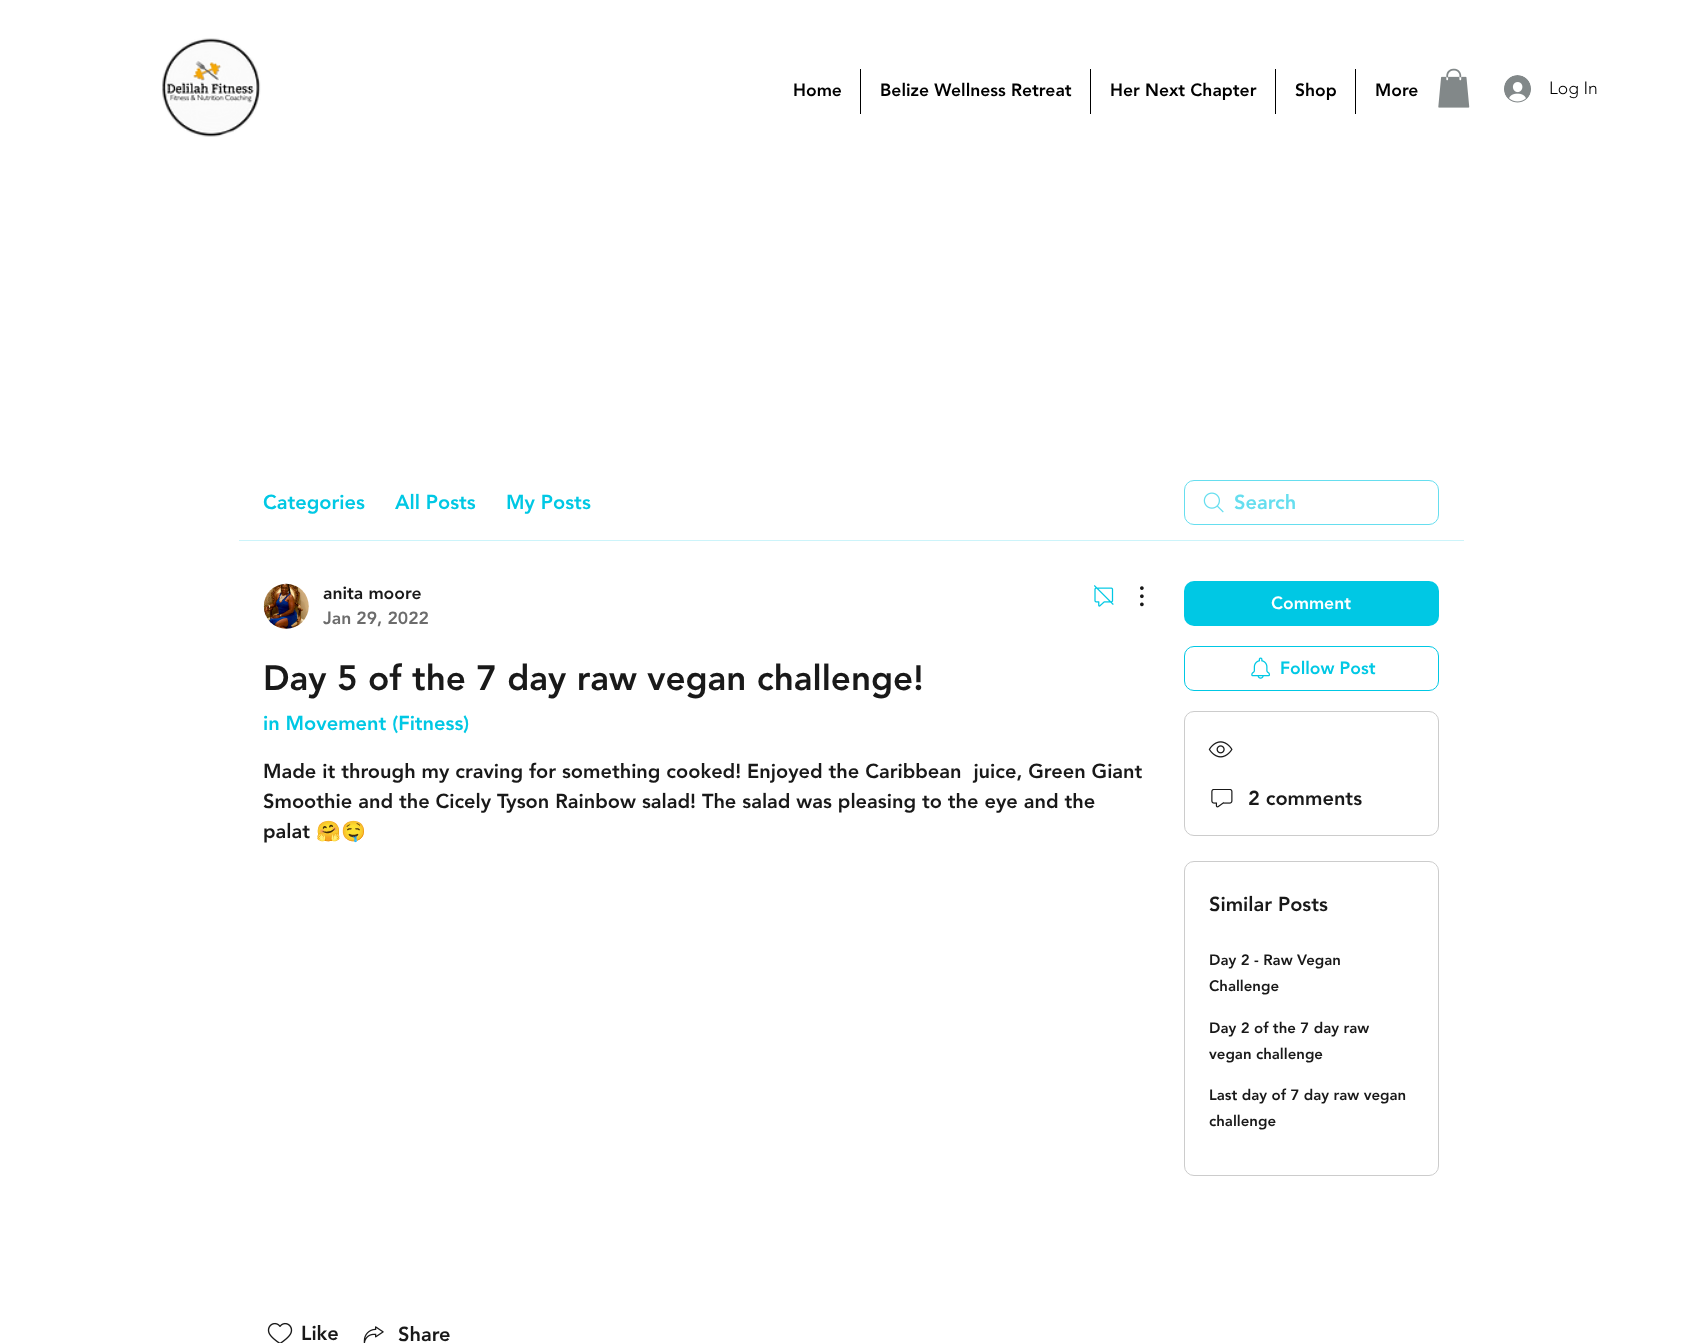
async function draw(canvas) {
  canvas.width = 1701
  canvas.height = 1343
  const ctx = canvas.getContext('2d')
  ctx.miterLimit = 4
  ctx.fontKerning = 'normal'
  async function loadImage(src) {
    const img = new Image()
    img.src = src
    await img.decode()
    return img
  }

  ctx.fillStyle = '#fff'
  ctx.fillRect(0, 0, 1701, 1343)
  ctx.drawImage(await loadImage('image0.png'), 162, 38, 99, 99)
  ctx.font = '900 17.5px "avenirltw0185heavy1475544"'
  ctx.fillStyle = '#000'
  ctx.fillText('Home', 793, 96)
  ctx.fillRect(860, 69, 1, 45)
  ctx.fillText('Belize Wellness Retreat', 880, 96)
  ctx.fillRect(1090, 69, 1, 45)
  ctx.fillText('Her Next Chapter', 1110, 96)
  ctx.fillRect(1275, 69, 1, 45)
  ctx.fillText('Shop', 1295, 96)
  ctx.fillRect(1355, 69, 1, 45)
  ctx.fillText('More', 1375, 96)
  ctx.drawImage(await loadImage('image1.png'), 1438, 68, 32, 40)
  ctx.drawImage(await loadImage('image2.png'), 1504, 75, 27, 28)
  ctx.font = '300 17.5px "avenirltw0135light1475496"'
  ctx.fillText('Log In', 1549, 94)
  ctx.fillStyle = '#ccf4fa'
  ctx.fillRect(239, 540, 1225, 1)
  ctx.font = '900 20px "avenirltw0185heavy1475544"'
  ctx.fillStyle = '#00c8e4'
  ctx.fillText('Categories', 263, 509)
  ctx.fillText('All Posts', 395, 509)
  ctx.fillText('My Posts', 506, 509)
  ctx.drawImage(await loadImage('image3.png'), 1203, 492, 21, 21)
  ctx.beginPath()
  ctx.roundRect(1184.5, 480.5, 254, 44, 9.5)
  ctx.strokeStyle = '#66deef'
  ctx.stroke()
  ctx.fillStyle = '#66deef'
  ctx.fillText('Search', 1234, 509)
  ctx.drawImage(await loadImage('image4.png'), 263, 583, 46, 46)
  ctx.font = '900 17.5px "avenirltw0185heavy1475544"'
  ctx.fillStyle = '#191919'
  ctx.fillText('anita moore', 323, 599)
  ctx.fillStyle = '#6c6c6c'
  ctx.fillText('Jan 29, 2022', 323, 624)
  ctx.drawImage(await loadImage('image5.png'), 1094, 585, 20, 22)
  ctx.drawImage(await loadImage('image6.png'), 1140, 586, 4, 21)
  ctx.font = '900 35px "avenirltw0185heavy1475544"'
  ctx.fillStyle = '#191919'
  ctx.fillText('Day 5 of the 7 day raw vegan challenge!', 263, 690)
  ctx.font = '900 20px "avenirltw0185heavy1475544"'
  ctx.fillStyle = '#00c8e4'
  ctx.fillText('in Movement (Fitness)', 263, 730)
  ctx.fillStyle = '#191919'
  ctx.fillText('Made it through my craving for something cooked! Enjoyed the Caribbean  juice, Green Giant', 263, 778)
  ctx.fillText('Smoothie and the Cicely Tyson Rainbow salad! The salad was pleasing to the eye and the', 263, 808)
  ctx.fillText('palat', 263, 838)
  ctx.font = '20px Noto Color Emoji'
  ctx.fillText('🤗🤤', 316, 838)
  ctx.drawImage(await loadImage('image7.png'), 267, 1322, 26, 21)
  ctx.font = '900 20px "avenirltw0185heavy1475544"'
  ctx.fillText('Like', 301, 1340)
  ctx.drawImage(await loadImage('image8.png'), 363, 1326, 21, 17)
  ctx.fillText('Share', 398, 1341)
  ctx.fillStyle = '#00c8e4'
  ctx.beginPath()
  ctx.roundRect(1184, 581, 255, 45, 10)
  ctx.fill()
  ctx.font = '900 17.5px "avenirltw0185heavy1475544"'
  ctx.fillStyle = '#fff'
  ctx.fillText('Comment', 1271, 609)
  ctx.beginPath()
  ctx.roundRect(1184.5, 646.5, 254, 44, 9.5)
  ctx.strokeStyle = '#00c8e4'
  ctx.stroke()
  ctx.drawImage(await loadImage('image9.png'), 1251, 657, 19, 22)
  ctx.fillStyle = '#00c8e4'
  ctx.fillText('Follow Post', 1280, 674)
  ctx.beginPath()
  ctx.roundRect(1184.5, 711.5, 254, 124, 9.5)
  ctx.strokeStyle = '#ccc'
  ctx.stroke()
  ctx.drawImage(await loadImage('image10.png'), 1208, 741, 25, 17)
  ctx.drawImage(await loadImage('image11.png'), 1211, 789, 22, 19)
  ctx.font = '900 20px "avenirltw0185heavy1475544"'
  ctx.fillStyle = '#191919'
  ctx.fillText('2 comments', 1248, 805)
  ctx.beginPath()
  ctx.roundRect(1184.5, 861.5, 254, 314, 9.5)
  ctx.stroke()
  ctx.fillText('Similar Posts', 1209, 911)
  ctx.font = '900 15px "avenirltw0185heavy1475544"'
  ctx.fillText('Day 2 - Raw Vegan', 1209, 965)
  ctx.fillText('Challenge', 1209, 991)
  ctx.fillText('Day 2 of the 7 day raw', 1209, 1033)
  ctx.fillText('vegan challenge', 1209, 1059)
  ctx.fillText('Last day of 7 day raw vegan', 1209, 1100)
  ctx.fillText('challenge', 1209, 1126)
}

draw(document.querySelector('canvas'))
